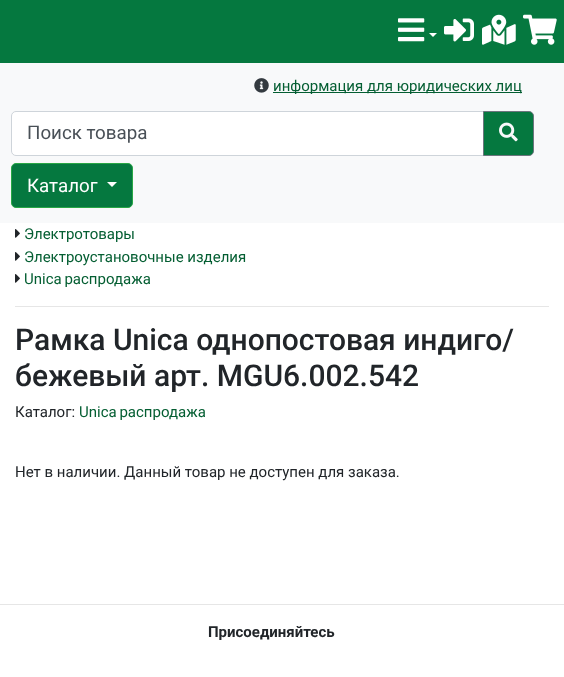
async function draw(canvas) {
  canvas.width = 564
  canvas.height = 677
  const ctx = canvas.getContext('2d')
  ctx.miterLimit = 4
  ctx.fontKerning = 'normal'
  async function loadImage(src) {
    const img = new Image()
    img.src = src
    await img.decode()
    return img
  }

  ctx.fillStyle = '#fff'
  ctx.fillRect(0, 0, 564, 677)
  ctx.fillStyle = '#05783f'
  ctx.fillRect(0, 0, 564, 63)
  ctx.drawImage(await loadImage('image0.png'), 398, 18, 27, 24)
  ctx.fillStyle = '#fff'
  ctx.beginPath()
  ctx.moveTo(429, 33)
  ctx.lineTo(437, 33)
  ctx.lineTo(433, 37)
  ctx.closePath()
  ctx.fill()
  ctx.drawImage(await loadImage('image1.png'), 444, 18, 30, 24)
  ctx.drawImage(await loadImage('image2.png'), 482, 14, 34, 31)
  ctx.drawImage(await loadImage('image3.png'), 523, 14, 34, 31)
  ctx.fillStyle = '#f8f9fa'
  ctx.fillRect(0, 63, 564, 160)
  ctx.drawImage(await loadImage('image4.png'), 254, 78, 15, 15)
  ctx.fillStyle = '#045e32'
  ctx.fillRect(273, 92, 249, 1)
  ctx.font = '15px Roboto'
  ctx.fillText('информация для юридических лиц', 273, 91)
  ctx.fillStyle = '#fff'
  ctx.beginPath()
  ctx.roundRect(11.5, 111.5, 472, 44, [4.5, 0, 0, 4.5])
  ctx.fill()
  ctx.strokeStyle = '#ced4da'
  ctx.stroke()
  ctx.font = '18.75px Roboto'
  ctx.fillStyle = '#495057'
  ctx.fillText('Поиск товара', 27, 139)
  ctx.fillStyle = '#05783f'
  ctx.beginPath()
  ctx.roundRect(483.5, 111.5, 50, 44, [0, 4.5, 4.5, 0])
  ctx.fill()
  ctx.strokeStyle = '#6c757d'
  ctx.stroke()
  ctx.drawImage(await loadImage('image5.png'), 499, 122, 19, 20)
  ctx.beginPath()
  ctx.roundRect(11.5, 163.5, 121, 44, 4.5)
  ctx.fill()
  ctx.strokeStyle = '#28a745'
  ctx.stroke()
  ctx.fillStyle = '#fff'
  ctx.fillText('Каталог', 27, 192)
  ctx.beginPath()
  ctx.moveTo(107, 182)
  ctx.lineTo(117, 182)
  ctx.lineTo(112, 187)
  ctx.closePath()
  ctx.fill()
  ctx.drawImage(await loadImage('image6.png'), 15, 229, 5, 9)
  ctx.font = '15px Roboto'
  ctx.fillStyle = '#045e32'
  ctx.fillText('Электротовары', 24, 239)
  ctx.drawImage(await loadImage('image6.png'), 15, 252, 5, 9)
  ctx.fillText('Электроустановочные изделия', 24, 262)
  ctx.drawImage(await loadImage('image6.png'), 15, 274, 5, 9)
  ctx.wordSpacing = '-1px'
  ctx.fillText('Unica распродажа', 24, 284)
  ctx.fillStyle = '#e6e6e6'
  ctx.fillRect(15, 306, 534, 1)
  ctx.wordSpacing = '0px'
  ctx.font = '500 30px Roboto'
  ctx.fillStyle = '#212529'
  ctx.fillText('Рамка Unica однопостовая индиго/', 15, 350)
  ctx.fillText('бежевый арт. MGU6.002.542', 15, 386)
  ctx.font = '15px Roboto'
  ctx.fillText('Каталог:', 15, 417)
  ctx.wordSpacing = '-1px'
  ctx.fillStyle = '#045e32'
  ctx.fillText('Unica распродажа', 79, 417)
  ctx.wordSpacing = '0px'
  ctx.fillStyle = '#212529'
  ctx.fillText('Нет в наличии. Данный товар не доступен для заказа.', 15, 477)
  ctx.fillStyle = '#e6e6e6'
  ctx.fillRect(0, 604, 564, 1)
  ctx.font = 'bold 15px Roboto'
  ctx.fillStyle = '#212529'
  ctx.fillText('Присоединяйтесь', 208, 637)
}

draw(document.querySelector('canvas'))
